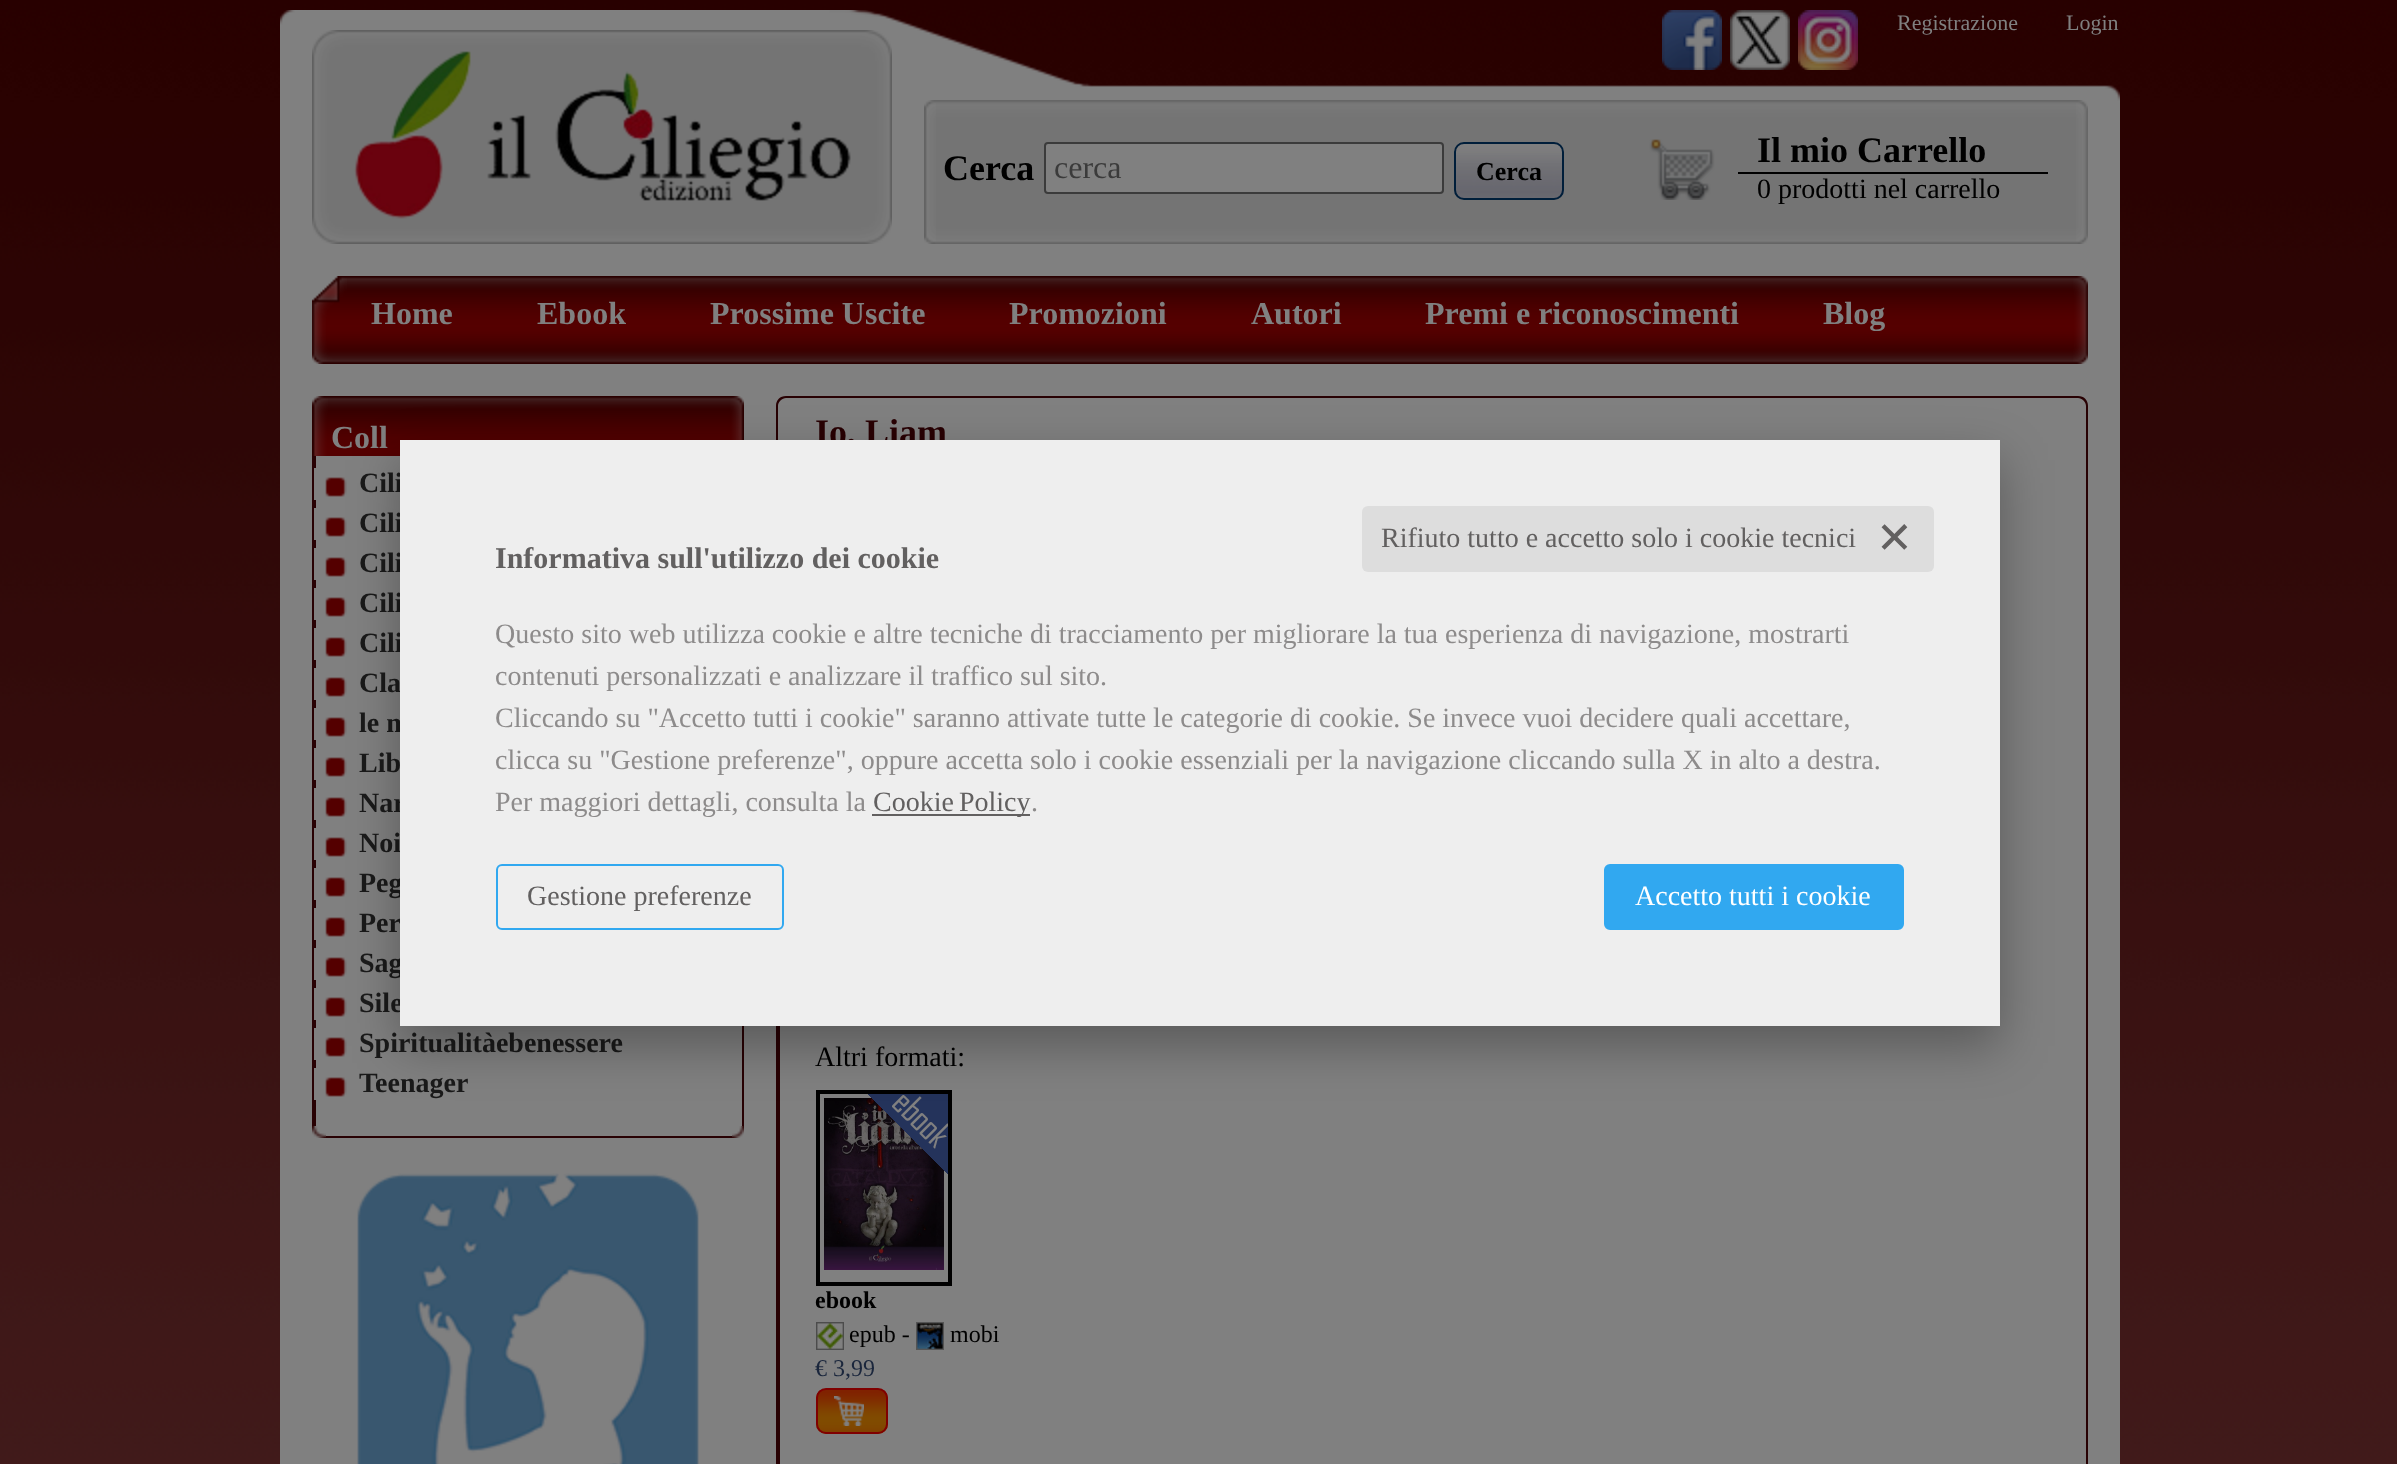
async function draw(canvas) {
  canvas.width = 2397
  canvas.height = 1464
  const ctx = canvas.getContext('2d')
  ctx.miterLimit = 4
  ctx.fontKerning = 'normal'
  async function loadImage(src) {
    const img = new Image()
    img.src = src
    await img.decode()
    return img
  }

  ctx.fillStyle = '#fff'
  ctx.fillRect(0, 0, 2397, 1464)
  ctx.drawImage(await loadImage('image0.png'), 0, 0, 2397, 1464)
  ctx.drawImage(await loadImage('image4.png'), 280, 10, 1840, 234)
  ctx.drawImage(await loadImage('image1.png'), 1662, 10, 60, 60)
  ctx.drawImage(await loadImage('image2.png'), 1730, 10, 60, 60)
  ctx.drawImage(await loadImage('image3.png'), 1798, 10, 60, 60)
  ctx.font = '22px Liberation Serif'
  ctx.fillStyle = '#808080'
  ctx.fillText('Registrazione', 1897, 30)
  ctx.fillText('Login', 2066, 30)
  ctx.drawImage(await loadImage('image5.png'), 312, 30, 580, 214)
  ctx.drawImage(await loadImage('image6.png'), 354, 51, 497, 168)
  ctx.drawImage(await loadImage('image7.png'), 936, 100, 1140, 144)
  ctx.drawImage(await loadImage('image8.png'), 924, 100, 12, 144)
  ctx.drawImage(await loadImage('image9.png'), 2076, 100, 12, 144)
  ctx.font = 'bold 36px Liberation Serif'
  ctx.fillStyle = '#000'
  ctx.fillText('Cerca', 943, 180)
  ctx.fillStyle = '#808080'
  ctx.beginPath()
  ctx.roundRect(1045, 143, 398, 50, 3)
  ctx.fill()
  ctx.strokeStyle = '#3b3b3b'
  ctx.lineWidth = 2
  ctx.stroke()
  ctx.font = '32px Liberation Serif'
  ctx.fillStyle = '#3b3b3b'
  ctx.fillText('cerca', 1054, 178)
  ctx.drawImage(await loadImage('image10.png'), 1454, 144, 110, 56)
  ctx.beginPath()
  ctx.roundRect(1455, 143, 108, 56, 9)
  ctx.strokeStyle = '#001e3a'
  ctx.stroke()
  ctx.font = 'bold 26px Liberation Serif'
  ctx.fillStyle = '#000'
  ctx.fillText('Cerca', 1476, 180)
  ctx.drawImage(await loadImage('image11.png'), 1649, 139, 66, 61)
  ctx.fillRect(1738, 172, 310, 2)
  ctx.font = 'bold 36px Liberation Serif'
  ctx.fillText('Il mio Carrello', 1757, 162)
  ctx.font = '28px Liberation Serif'
  ctx.fillText('0 prodotti nel carrello', 1757, 198)
  ctx.fillStyle = '#808080'
  ctx.fillRect(280, 244, 1840, 1220)
  ctx.drawImage(await loadImage('image12.png'), 347, 276, 1726, 88)
  ctx.drawImage(await loadImage('image13.png'), 312, 276, 35, 88)
  ctx.drawImage(await loadImage('image14.png'), 2073, 276, 15, 88)
  ctx.font = 'bold 32px Liberation Serif'
  ctx.fillText('Home', 371, 324)
  ctx.fillText('Ebook', 537, 324)
  ctx.fillText('Prossime Uscite', 710, 324)
  ctx.fillText('Promozioni', 1009, 324)
  ctx.fillText('Autori', 1251, 324)
  ctx.fillText('Premi e riconoscimenti', 1425, 324)
  ctx.fillText('Blog', 1823, 324)
  ctx.drawImage(await loadImage('image15.png'), 328, 396, 402, 60)
  ctx.drawImage(await loadImage('image16.png'), 312, 396, 16, 60)
  ctx.drawImage(await loadImage('image17.png'), 730, 396, 14, 44)
  ctx.fillText('Coll', 331, 448)
  ctx.fillStyle = '#280103'
  ctx.fillRect(312, 456, 4, 670)
  ctx.fillRect(742, 1026, 2, 100)
  ctx.fillRect(326, 1136, 406, 2)
  ctx.drawImage(await loadImage('image18.png'), 312, 1126, 14, 12)
  ctx.drawImage(await loadImage('image19.png'), 732, 1126, 12, 12)
  ctx.drawImage(await loadImage('image20.png'), 314, 468, 33, 32)
  ctx.font = 'bold 28px Liberation Serif'
  ctx.fillStyle = '#1a1a1a'
  ctx.fillText('Cili', 359, 492)
  ctx.drawImage(await loadImage('image20.png'), 314, 508, 33, 32)
  ctx.fillText('Cili', 359, 532)
  ctx.drawImage(await loadImage('image20.png'), 314, 548, 33, 32)
  ctx.fillText('Cili', 359, 572)
  ctx.drawImage(await loadImage('image20.png'), 314, 588, 33, 32)
  ctx.fillText('Cili', 359, 612)
  ctx.drawImage(await loadImage('image20.png'), 314, 628, 33, 32)
  ctx.fillText('Cili', 359, 652)
  ctx.drawImage(await loadImage('image20.png'), 314, 668, 33, 32)
  ctx.fillText('Cla', 359, 692)
  ctx.drawImage(await loadImage('image20.png'), 314, 708, 33, 32)
  ctx.fillText('le m', 359, 732)
  ctx.drawImage(await loadImage('image20.png'), 314, 748, 33, 32)
  ctx.fillText('Lib', 359, 772)
  ctx.drawImage(await loadImage('image20.png'), 314, 788, 33, 32)
  ctx.fillText('Nar', 359, 812)
  ctx.drawImage(await loadImage('image20.png'), 314, 828, 33, 32)
  ctx.fillText('Noi', 359, 852)
  ctx.drawImage(await loadImage('image20.png'), 314, 868, 33, 32)
  ctx.fillText('Peg', 359, 892)
  ctx.drawImage(await loadImage('image20.png'), 314, 908, 33, 32)
  ctx.fillText('Per', 359, 932)
  ctx.drawImage(await loadImage('image20.png'), 314, 948, 33, 32)
  ctx.fillText('Sag', 359, 972)
  ctx.drawImage(await loadImage('image20.png'), 314, 988, 33, 32)
  ctx.fillText('Sile', 359, 1012)
  ctx.drawImage(await loadImage('image20.png'), 314, 1028, 33, 32)
  ctx.fillText('Spiritualitàebenessere', 359, 1052)
  ctx.drawImage(await loadImage('image20.png'), 314, 1068, 33, 32)
  ctx.fillText('Teenager', 359, 1092)
  ctx.drawImage(await loadImage('image21.png'), 357, 1173, 342, 291)
  ctx.fillStyle = '#280103'
  ctx.beginPath()
  ctx.moveTo(786, 396)
  ctx.lineTo(2078, 396)
  ctx.bezierCurveTo(2084, 396, 2088, 400, 2088, 406)
  ctx.lineTo(2088, 454)
  ctx.lineTo(776, 454)
  ctx.lineTo(776, 406)
  ctx.bezierCurveTo(776, 400, 780, 396, 786, 396)
  ctx.closePath()
  ctx.moveTo(786, 398)
  ctx.lineTo(2078, 398)
  ctx.bezierCurveTo(2082, 398, 2086, 402, 2086, 406)
  ctx.lineTo(2086, 454)
  ctx.lineTo(778, 454)
  ctx.lineTo(778, 406)
  ctx.bezierCurveTo(778, 402, 782, 398, 786, 398)
  ctx.closePath()
  ctx.fill('evenodd')
  ctx.font = 'bold 36px Liberation Serif'
  ctx.fillText('Io, Liam', 815, 444)
  ctx.fillRect(776, 1026, 4, 438)
  ctx.fillRect(2086, 454, 2, 1010)
  ctx.font = '28px Liberation Serif'
  ctx.fillStyle = '#000'
  ctx.fillText('Altri formati:', 815, 1066)
  ctx.strokeStyle = '#000'
  ctx.lineWidth = 4
  ctx.strokeRect(818, 1092, 132, 192)
  ctx.drawImage(await loadImage('image23.png'), 824, 1098, 120, 172)
  ctx.drawImage(await loadImage('image22.png'), 868, 1094, 80, 80)
  ctx.font = 'bold 24px Liberation Serif'
  ctx.fillText('ebook', 815, 1308)
  ctx.drawImage(await loadImage('image24.png'), 816, 1322, 28, 28)
  ctx.font = '24px Liberation Serif'
  ctx.fillText('epub -', 849, 1342)
  ctx.drawImage(await loadImage('image25.png'), 916, 1322, 28, 28)
  ctx.fillText('mobi', 950, 1342)
  ctx.fillStyle = '#1a263c'
  ctx.fillText('€ 3,99', 815, 1376)
  ctx.drawImage(await loadImage('image26.png'), 816, 1390, 72, 44)
  ctx.beginPath()
  ctx.roundRect(817, 1389, 70, 44, 9)
  ctx.strokeStyle = '#800000'
  ctx.lineWidth = 2
  ctx.stroke()
  ctx.drawImage(await loadImage('image27.png'), 834, 1396, 30, 30)
  ctx.fillStyle = '#0000004d'
  ctx.filter = 'blur(25px)'
  ctx.beginPath()
  ctx.rect(400, 460, 1600, 586)
  ctx.fill()
  ctx.filter = 'none'
  ctx.fillStyle = '#eee'
  ctx.fillRect(400, 440, 1600, 586)
  ctx.fillStyle = '#ddd'
  ctx.beginPath()
  ctx.roundRect(1362, 506, 572, 66, 6)
  ctx.fill()
  ctx.font = '28px Liberation Serif'
  ctx.fillStyle = '#626060'
  ctx.fillText('Rifiuto tutto e accetto solo i cookie tecnici', 1381, 547)
  ctx.font = '44px DejaVu Sans'
  ctx.fillText('✕', 1876, 553)
  ctx.font = 'bold 30px Liberation Serif'
  ctx.fillText('Informativa sull\'utilizzo dei cookie', 495, 568)
  ctx.font = '28px Liberation Serif'
  ctx.fillStyle = '#8d8b8b'
  ctx.fillText('Questo sito web utilizza cookie e altre tecniche di tracciamento per migliorare la tua esperienza di navigazione, mostrarti', 495, 643)
  ctx.fillText('contenuti personalizzati e analizzare il traffico sul sito.', 495, 685)
  ctx.fillText('Cliccando su "Accetto tutti i cookie" saranno attivate tutte le categorie di cookie. Se invece vuoi decidere quali accettare,', 495, 727)
  ctx.fillText('clicca su "Gestione preferenze", oppure accetta solo i cookie essenziali per la navigazione cliccando sulla X in alto a destra.', 495, 769)
  ctx.fillText('Per maggiori dettagli, consulta la', 495, 811)
  ctx.fillStyle = '#626060'
  ctx.fillRect(872, 814, 158, 2)
  ctx.wordSpacing = '-2px'
  ctx.fillText('Cookie Policy', 873, 811)
  ctx.wordSpacing = '0px'
  ctx.fillStyle = '#8d8b8b'
  ctx.fillText('.', 1031, 811)
  ctx.beginPath()
  ctx.roundRect(497, 865, 286, 64, 5)
  ctx.strokeStyle = '#31a8f0'
  ctx.stroke()
  ctx.fillStyle = '#626060'
  ctx.fillText('Gestione preferenze', 527, 905)
  ctx.fillStyle = '#31a8f0'
  ctx.beginPath()
  ctx.roundRect(1605, 865, 298, 64, 5)
  ctx.fill()
  ctx.stroke()
  ctx.fillStyle = '#fff'
  ctx.fillText('Accetto tutti i cookie', 1635, 905)
}

draw(document.querySelector('canvas'))
